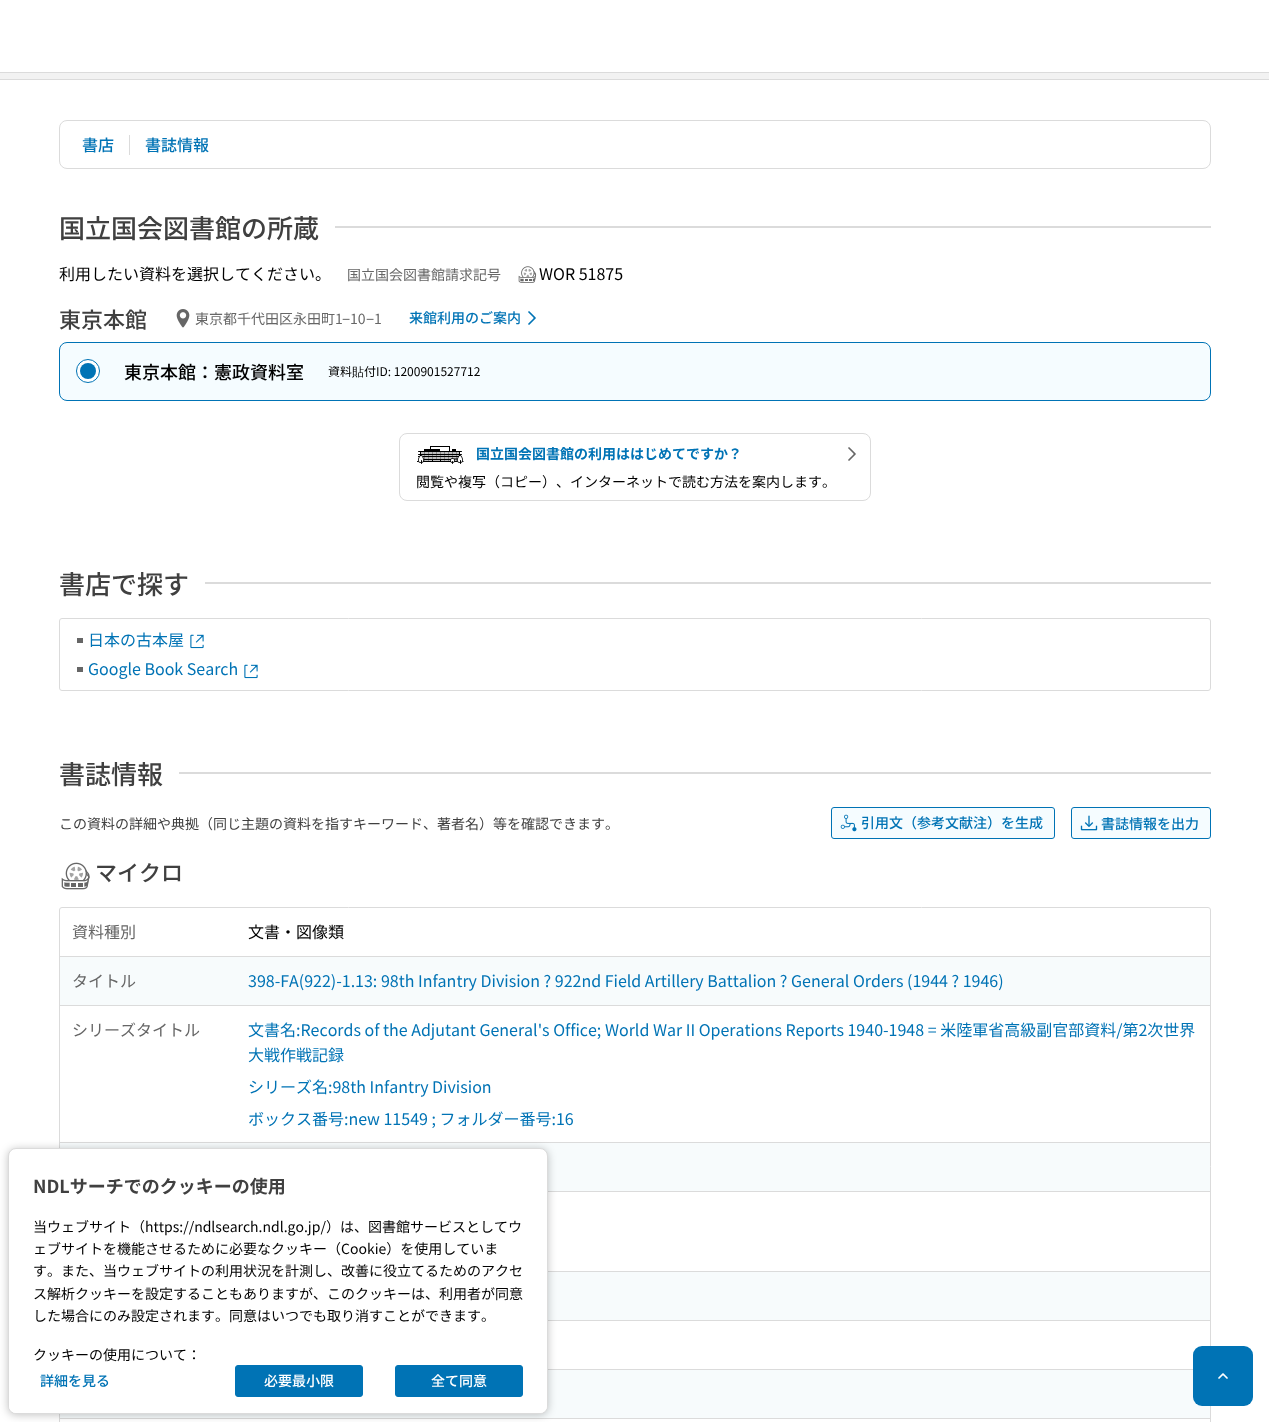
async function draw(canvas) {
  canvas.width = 1269
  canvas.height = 1422
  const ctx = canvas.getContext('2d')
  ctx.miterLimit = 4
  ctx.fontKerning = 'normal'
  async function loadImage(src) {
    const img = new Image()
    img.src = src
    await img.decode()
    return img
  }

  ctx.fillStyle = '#fff'
  ctx.fillRect(0, 0, 1269, 1422)
  ctx.fillStyle = '#f2f2f2'
  ctx.fillRect(0, 73, 1269, 6)
  ctx.fillStyle = '#dbdbdb'
  ctx.fillRect(0, 72, 1269, 1)
  ctx.fillRect(0, 79, 1269, 1)
  ctx.beginPath()
  ctx.roundRect(59.5, 120.5, 1151, 48, 7.5)
  ctx.strokeStyle = '#dbdbdb'
  ctx.stroke()
  ctx.font = '500 16px Noto Sans JP'
  ctx.fillStyle = '#0073b5'
  ctx.fillText('書店', 82, 151)
  ctx.fillStyle = '#dbdbdb'
  ctx.fillRect(129, 135, 1, 20)
  ctx.fillStyle = '#0073b5'
  ctx.fillText('書誌情報', 145, 151)
  ctx.font = '500 26px Noto Sans JP'
  ctx.fillStyle = '#404040'
  ctx.fillText('国立国会図書館の所蔵', 59, 238)
  ctx.fillStyle = '#dbdbdb'
  ctx.fillRect(335, 226, 876, 2)
  ctx.font = '16px Noto Sans JP'
  ctx.fillStyle = '#000'
  ctx.fillText('利用したい資料を選択してください。', 59, 280)
  ctx.font = '14px Noto Sans JP'
  ctx.fillStyle = '#666'
  ctx.fillText('国立国会図書館請求記号', 347, 280)
  ctx.drawImage(await loadImage('image0.png'), 518, 266, 19, 17)
  ctx.font = '16px Noto Sans JP'
  ctx.fillStyle = '#000'
  ctx.fillText('WOR 51875', 539, 280)
  ctx.font = '500 22px Noto Sans JP'
  ctx.fillStyle = '#404040'
  ctx.fillText('東京本館', 59, 328)
  ctx.drawImage(await loadImage('image1.png'), 176, 309, 14, 19)
  ctx.font = '14px Noto Sans JP'
  ctx.fillStyle = '#666'
  ctx.fillText('東京都千代田区永田町1', 195, 324)
  ctx.font = '14px Liberation Sans'
  ctx.fillText('−', 342, 324)
  ctx.font = '14px Noto Sans JP'
  ctx.fillText('10', 350, 324)
  ctx.font = '14px Liberation Sans'
  ctx.fillText('−', 366, 324)
  ctx.font = '14px Noto Sans JP'
  ctx.fillText('1', 374, 324)
  ctx.font = '500 14px Noto Sans JP'
  ctx.fillStyle = '#0073b5'
  ctx.fillText('来館利用のご案内', 409, 323)
  ctx.drawImage(await loadImage('image2.png'), 528, 311, 8, 14)
  ctx.fillStyle = '#f5fcff'
  ctx.beginPath()
  ctx.roundRect(59.5, 342.5, 1151, 58, 7.5)
  ctx.fill()
  ctx.strokeStyle = '#0073b5'
  ctx.stroke()
  ctx.fillStyle = '#fff'
  ctx.beginPath()
  ctx.arc(88, 371, 11.5, 0, 2 * Math.PI)
  ctx.fill()
  ctx.stroke()
  ctx.fillStyle = '#0073b5'
  ctx.beginPath()
  ctx.arc(88, 371, 8, 0, 2 * Math.PI)
  ctx.fill()
  ctx.font = '500 18px Noto Sans JP'
  ctx.fillStyle = '#000'
  ctx.fillText('東京本館：憲政資料室', 124, 379)
  ctx.font = '12px Noto Sans JP'
  ctx.fillText('資料', 328, 376)
  ctx.font = '500 12px WenQuanYi Zen Hei'
  ctx.fillText('貼', 352, 376)
  ctx.font = '12px Noto Sans JP'
  ctx.fillText('付ID: 1200901527712', 364, 376)
  ctx.beginPath()
  ctx.roundRect(399.5, 433.5, 471, 67, 7.5)
  ctx.strokeStyle = '#dbdbdb'
  ctx.stroke()
  ctx.drawImage(await loadImage('image3.png'), 417, 446, 47, 18)
  ctx.font = 'bold 14px Noto Sans JP'
  ctx.fillStyle = '#0073b5'
  ctx.fillText('国立国会図書館の利用ははじめてですか？', 476, 459)
  ctx.font = '14px Noto Sans JP'
  ctx.fillStyle = '#000'
  ctx.fillText('閲覧や複写（コピー）、インターネットで読む方法を案内します。', 416, 487)
  ctx.drawImage(await loadImage('image4.png'), 848, 447, 8, 14)
  ctx.font = '500 26px Noto Sans JP'
  ctx.fillStyle = '#404040'
  ctx.fillText('書店で探す', 59, 594)
  ctx.fillStyle = '#dbdbdb'
  ctx.fillRect(205, 582, 1006, 2)
  ctx.beginPath()
  ctx.roundRect(59.5, 618.5, 1151, 72, 2.5)
  ctx.stroke()
  ctx.fillStyle = '#666'
  ctx.fillRect(77, 638, 6, 5)
  ctx.font = '16px Noto Sans JP'
  ctx.fillStyle = '#0073b5'
  ctx.fillText('日本の古本屋', 88, 646)
  ctx.drawImage(await loadImage('image5.png'), 190, 634, 14, 15)
  ctx.fillStyle = '#666'
  ctx.fillRect(77, 667, 6, 5)
  ctx.fillStyle = '#0073b5'
  ctx.fillText('Google Book Search', 88, 675)
  ctx.drawImage(await loadImage('image5.png'), 244, 664, 14, 15)
  ctx.font = '500 26px Noto Sans JP'
  ctx.fillStyle = '#404040'
  ctx.fillText('書誌情報', 59, 784)
  ctx.fillStyle = '#dbdbdb'
  ctx.fillRect(179, 772, 1032, 2)
  ctx.font = '14px Noto Sans JP'
  ctx.fillStyle = '#404040'
  ctx.fillText('この資料の詳細や典拠（同じ主題の資料を指すキーワード、著者名）等を確認できます。', 59, 829)
  ctx.fillStyle = '#f5fcff'
  ctx.beginPath()
  ctx.roundRect(831.5, 807.5, 223, 31, 2.5)
  ctx.fill()
  ctx.strokeStyle = '#0073b5'
  ctx.stroke()
  ctx.drawImage(await loadImage('image6.png'), 840, 814, 17, 18)
  ctx.font = '500 14px Noto Sans JP'
  ctx.fillStyle = '#0073b5'
  ctx.fillText('引用文（参考文献注）を生成', 861, 828)
  ctx.fillStyle = '#f5fcff'
  ctx.beginPath()
  ctx.roundRect(1071.5, 807.5, 139, 31, 2.5)
  ctx.fill()
  ctx.stroke()
  ctx.drawImage(await loadImage('image7.png'), 1080, 815, 18, 16)
  ctx.fillStyle = '#0073b5'
  ctx.fillText('書誌情報を出力', 1101, 829)
  ctx.drawImage(await loadImage('image8.png'), 61, 862, 29, 28)
  ctx.font = '500 22px Noto Sans JP'
  ctx.fillStyle = '#404040'
  ctx.fillText('マイクロ', 95, 881)
  ctx.beginPath()
  ctx.roundRect(59.5, 907.5, 1151, 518, 2.5)
  ctx.strokeStyle = '#dbdbdb'
  ctx.stroke()
  ctx.fillStyle = '#dbdbdb'
  ctx.fillRect(60, 956, 1150, 1)
  ctx.font = '16px Noto Sans JP'
  ctx.fillStyle = '#666'
  ctx.fillText('資料種別', 72, 938)
  ctx.fillStyle = '#000'
  ctx.fillText('文書・図像類', 248, 938)
  ctx.fillStyle = '#f7fbfc'
  ctx.fillRect(60, 957, 1150, 48)
  ctx.fillStyle = '#dbdbdb'
  ctx.fillRect(60, 1005, 1150, 1)
  ctx.fillStyle = '#666'
  ctx.fillText('タイトル', 72, 987)
  ctx.fillStyle = '#0073b5'
  ctx.fillText('398-FA(922)-1.13: 98th Infantry Division ? 922nd Field Artillery Battalion ? General Orders (1944 ? 1946)', 248, 987)
  ctx.fillStyle = '#dbdbdb'
  ctx.fillRect(60, 1142, 1150, 1)
  ctx.fillStyle = '#666'
  ctx.fillText('シリーズタイトル', 72, 1036)
  ctx.fillStyle = '#0073b5'
  ctx.fillText('文書名:Records of the Adjutant General\'s Office; World War II Operations Reports 1940-1948 = 米陸軍省高級副官部資料/第2次世界', 248, 1036)
  ctx.fillText('大戦作戦記録', 248, 1061)
  ctx.fillText('シリーズ名:98th Infantry Division', 248, 1093)
  ctx.fillText('ボックス番号:new 11549 ; フォルダー番号:16', 248, 1125)
  ctx.fillStyle = '#f7fbfc'
  ctx.fillRect(60, 1143, 1150, 48)
  ctx.fillStyle = '#dbdbdb'
  ctx.fillRect(548, 1191, 662, 1)
  ctx.fillRect(548, 1271, 662, 1)
  ctx.fillStyle = '#f7fbfc'
  ctx.fillRect(548, 1272, 662, 48)
  ctx.fillStyle = '#dbdbdb'
  ctx.fillRect(548, 1320, 662, 1)
  ctx.fillRect(548, 1369, 645, 1)
  ctx.fillStyle = '#f7fbfc'
  ctx.fillRect(60, 1370, 1150, 48)
  ctx.fillStyle = '#dbdbdb'
  ctx.fillRect(60, 1418, 1150, 1)
  ctx.fillStyle = '#0000003d'
  ctx.filter = 'blur(4px)'
  ctx.beginPath()
  ctx.roundRect(8, 1149, 540, 266, 8)
  ctx.fill()
  ctx.filter = 'none'
  ctx.fillStyle = '#fff'
  ctx.beginPath()
  ctx.roundRect(8.5, 1148.5, 539, 265, 7.5)
  ctx.fill()
  ctx.stroke()
  ctx.font = 'bold 18px Noto Sans JP'
  ctx.fillStyle = '#404040'
  ctx.fillText('NDLサーチでのクッキーの使用', 33, 1193)
  ctx.font = '14px Noto Sans JP'
  ctx.fillStyle = '#000'
  ctx.fillText('当ウェブサイト（https://ndlsearch.ndl.go.jp/）は、図書館サービスとしてウ', 33, 1232)
  ctx.fillText('ェブサイトを機能させるために必要なクッキー（Cookie）を使用していま', 33, 1254)
  ctx.fillText('す。また、当ウェブサイトの利用状況を計測し、改善に役立てるためのアクセ', 33, 1276)
  ctx.fillText('ス解析クッキーを設定することもありますが、このクッキーは、利用者が同意', 33, 1299)
  ctx.fillText('した場合にのみ設定されます。同意はいつでも取り消すことができます。', 33, 1321)
  ctx.fillStyle = '#fff'
  ctx.beginPath()
  ctx.roundRect(9, 1327, 538, 86, [0, 0, 7, 7])
  ctx.fill()
  ctx.fillStyle = '#000'
  ctx.fillText('クッキーの使用について：', 33, 1360)
  ctx.font = '500 14px Noto Sans JP'
  ctx.fillStyle = '#0073b5'
  ctx.fillText('詳細を見る', 40, 1386)
  ctx.beginPath()
  ctx.roundRect(235.5, 1365.5, 127, 31, 2.5)
  ctx.fill()
  ctx.strokeStyle = '#0073b5'
  ctx.stroke()
  ctx.fillStyle = '#fff'
  ctx.fillText('必要最小限', 264, 1386)
  ctx.fillStyle = '#0073b5'
  ctx.beginPath()
  ctx.roundRect(395.5, 1365.5, 127, 31, 2.5)
  ctx.fill()
  ctx.stroke()
  ctx.fillStyle = '#fff'
  ctx.fillText('全て同意', 431, 1386)
  ctx.fillStyle = '#0073b5'
  ctx.beginPath()
  ctx.roundRect(1193, 1346, 60, 60, 9)
  ctx.fill()
  ctx.drawImage(await loadImage('image9.png'), 1218, 1373, 10, 6)
}

draw(document.querySelector('canvas'))
